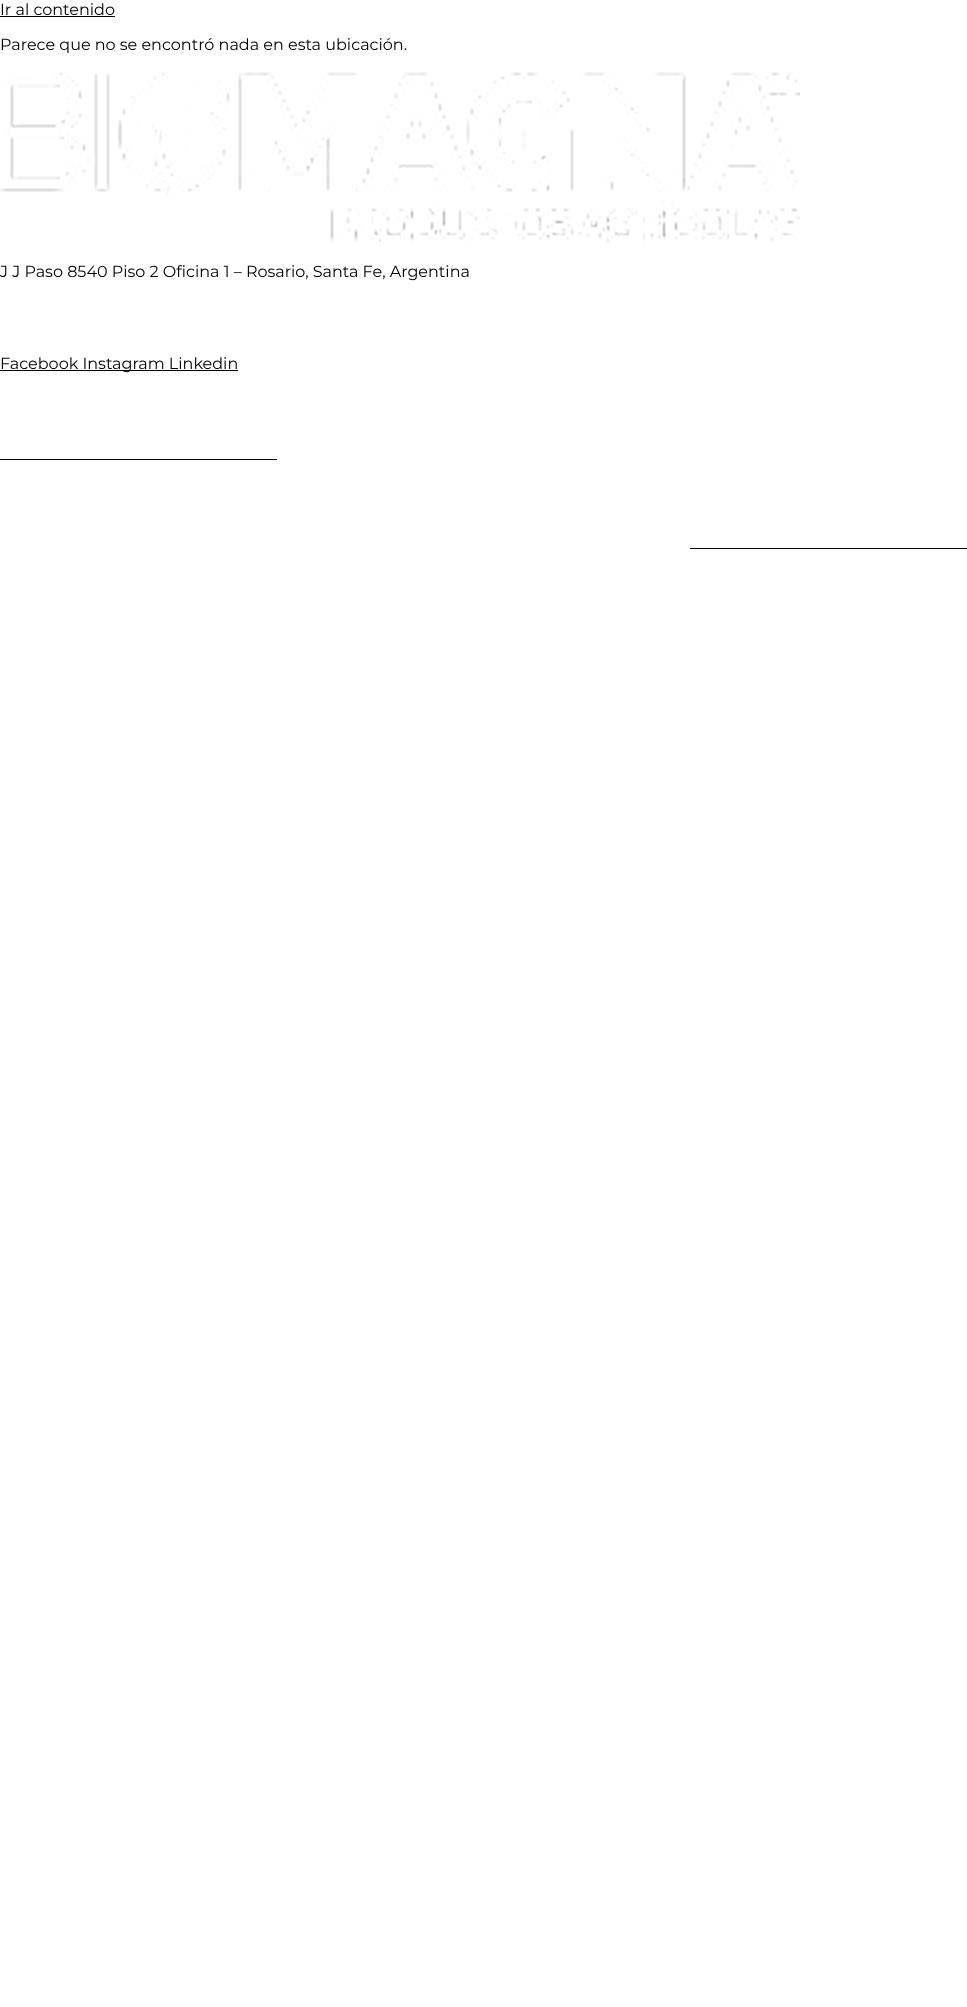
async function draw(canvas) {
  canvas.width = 967
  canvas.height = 2007
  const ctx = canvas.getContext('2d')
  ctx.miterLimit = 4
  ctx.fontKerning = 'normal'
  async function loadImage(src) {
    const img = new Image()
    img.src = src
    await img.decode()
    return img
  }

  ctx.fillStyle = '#fff'
  ctx.fillRect(0, 0, 967, 2007)
  ctx.font = '16px Montserrat'
  ctx.fillStyle = '#000'
  ctx.fillText('Ir al contenido', 0, 15)
  ctx.fillRect(0, 16, 115, 1)
  ctx.fillText('Parece que no se encontró nada en esta ubicación.', 0, 50)
  ctx.drawImage(await loadImage('image0.png'), 0, 72, 800, 170)
  ctx.fillText('J J Paso 8540 Piso 2 Oficina 1 – Rosario, Santa Fe, Argentina', 0, 277)
  ctx.fillRect(0, 370, 238, 1)
  ctx.fillText('Facebook Instagram Linkedin', 0, 369)
  ctx.fillRect(0, 459, 277, 1)
  ctx.fillRect(690, 548, 277, 1)
}

draw(document.querySelector('canvas'))
